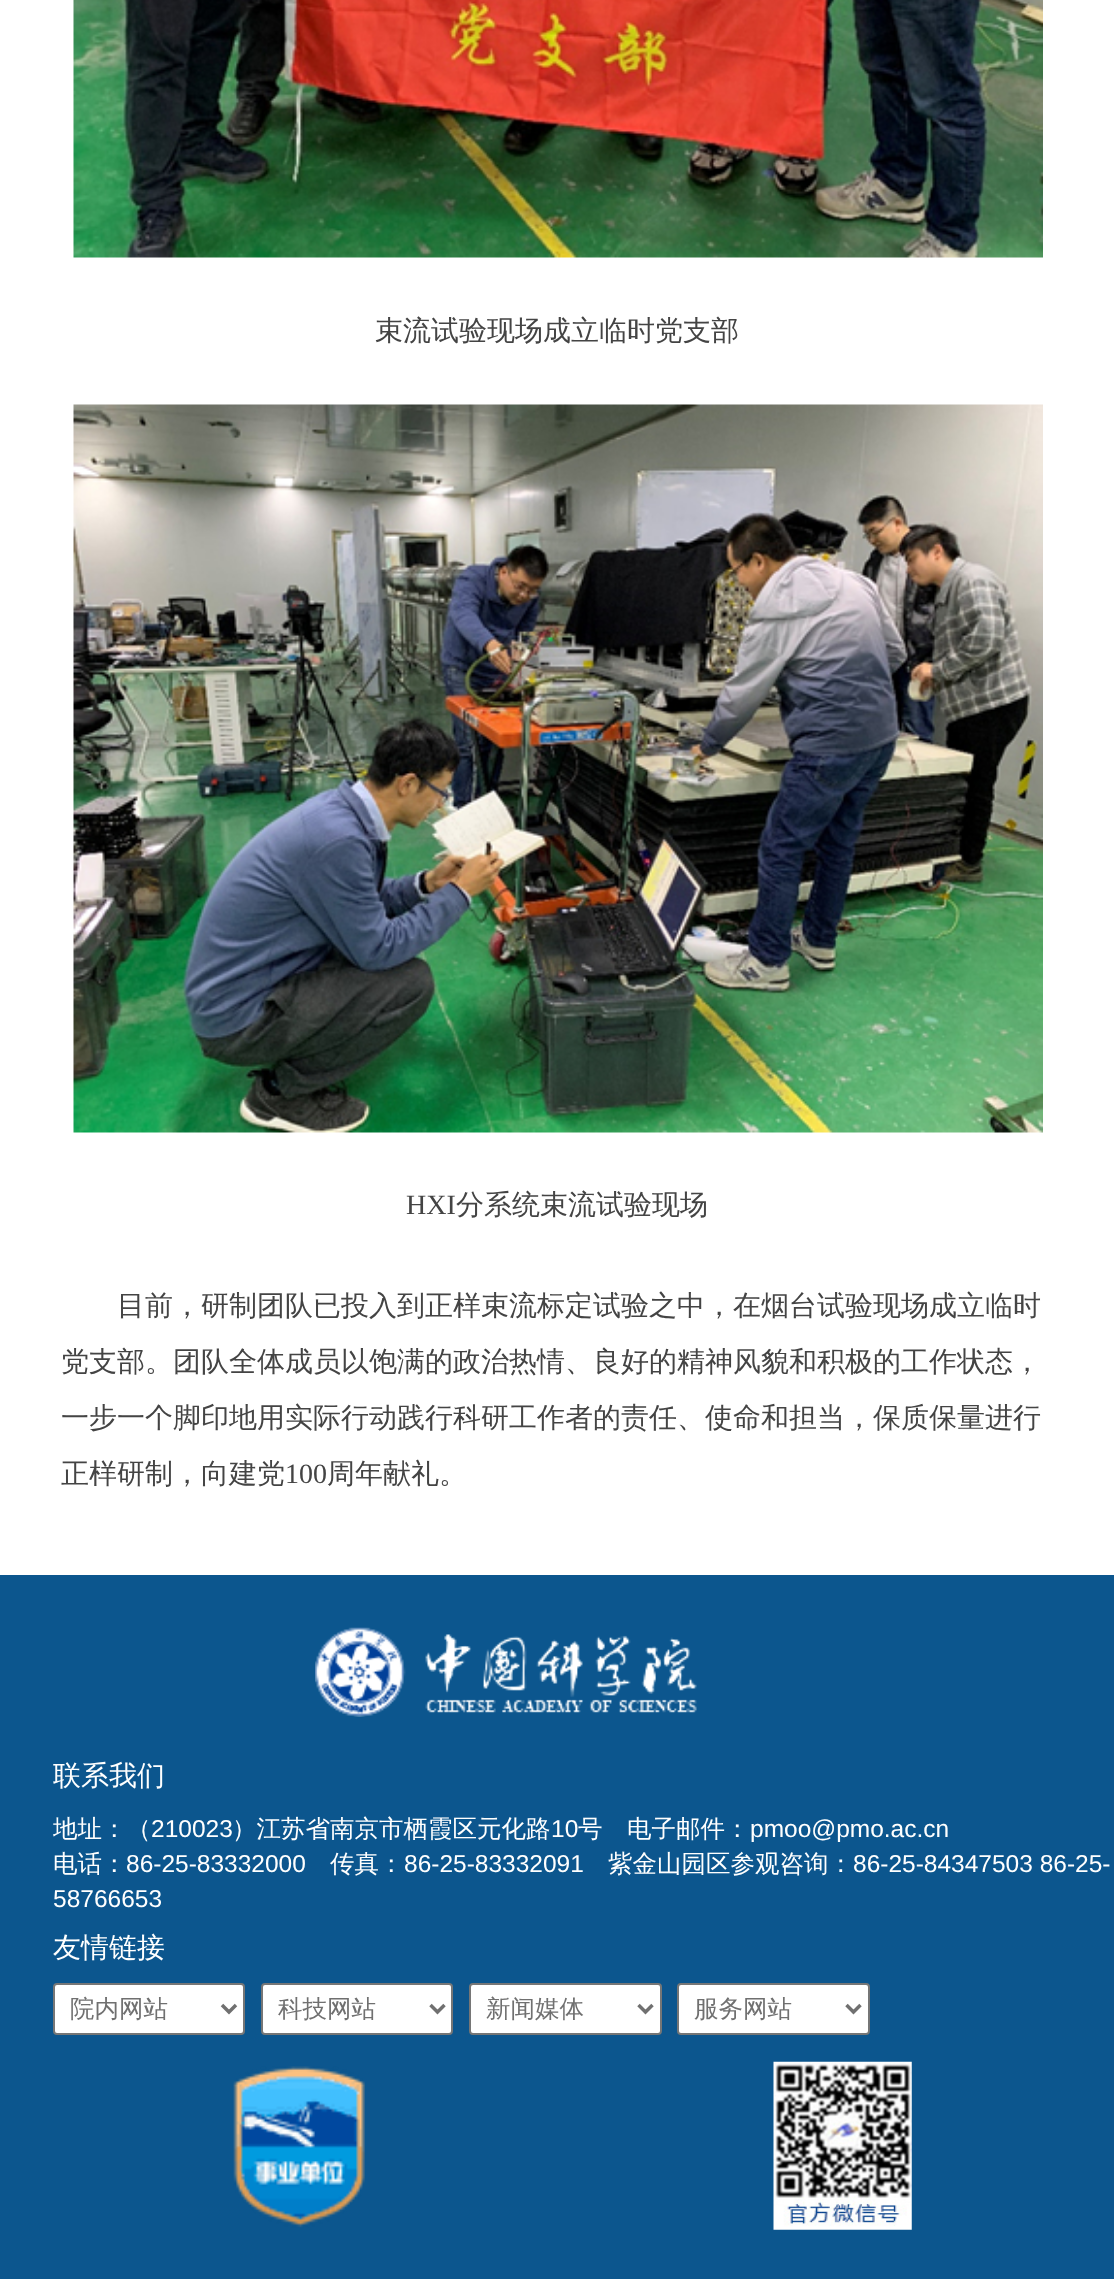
async function draw(canvas) {
  canvas.width = 1114
  canvas.height = 2279
  const ctx = canvas.getContext('2d')
  ctx.miterLimit = 4
  ctx.fontKerning = 'normal'
  async function loadImage(src) {
    const img = new Image()
    img.src = src
    await img.decode()
    return img
  }

  ctx.fillStyle = '#fff'
  ctx.fillRect(0, 0, 1114, 2279)
  ctx.drawImage(await loadImage('image0.png'), 73, 0, 970, 258)
  ctx.font = '500 28px WenQuanYi Zen Hei'
  ctx.fillStyle = '#444'
  ctx.fillText('束流试验现场成立临时党支部', 375, 340)
  ctx.drawImage(await loadImage('image1.png'), 73, 404, 970, 729)
  ctx.font = '28px Liberation Serif'
  ctx.fillText('HXI', 406, 1214)
  ctx.font = '500 28px WenQuanYi Zen Hei'
  ctx.fillText('分系统束流试验现场', 456, 1214)
  ctx.fillText('目前，研制团队已投入到正样束流标定试验之中，在烟台试验现场成立临时', 117, 1315)
  ctx.fillText('党支部。团队全体成员以饱满的政治热情、良好的精神风貌和积极的工作状态，', 61, 1371)
  ctx.fillText('一步一个脚印地用实际行动践行科研工作者的责任、使命和担当，保质保量进行', 61, 1427)
  ctx.fillText('正样研制，向建党', 61, 1483)
  ctx.font = '28px Liberation Serif'
  ctx.fillText('100', 285, 1483)
  ctx.font = '500 28px WenQuanYi Zen Hei'
  ctx.fillText('周年献礼。', 327, 1483)
  ctx.fillStyle = '#0c568e'
  ctx.fillRect(0, 1575, 1114, 704)
  ctx.drawImage(await loadImage('image2.png'), 315, 1627, 382, 90)
  ctx.fillStyle = '#fff'
  ctx.fillText('联系我们', 53, 1785)
  ctx.font = '500 24.5px WenQuanYi Zen Hei'
  ctx.fillText('地址：（', 53, 1837)
  ctx.font = '24.5px Liberation Sans'
  ctx.fillText('210023', 151, 1837)
  ctx.font = '500 24.5px WenQuanYi Zen Hei'
  ctx.fillText('）江苏省南京市栖霞区元化路', 232, 1837)
  ctx.font = '24.5px Liberation Sans'
  ctx.fillText('10', 551, 1837)
  ctx.font = '500 24.5px WenQuanYi Zen Hei'
  ctx.fillText('号　电子邮件：', 578, 1837)
  ctx.font = '24.5px Liberation Sans'
  ctx.fillText('pmoo@pmo.ac.cn', 750, 1837)
  ctx.font = '500 24.5px WenQuanYi Zen Hei'
  ctx.fillText('电话：', 53, 1872)
  ctx.font = '24.5px Liberation Sans'
  ctx.fillText('86-25-83332000', 126, 1872)
  ctx.font = '500 24.5px WenQuanYi Zen Hei'
  ctx.fillText('传真：', 330, 1872)
  ctx.font = '24.5px Liberation Sans'
  ctx.fillText('86-25-83332091', 404, 1872)
  ctx.font = '500 24.5px WenQuanYi Zen Hei'
  ctx.fillText('紫金山园区参观咨询：', 608, 1872)
  ctx.font = '24.5px Liberation Sans'
  ctx.fillText('86-25-84347503 86-25-', 853, 1872)
  ctx.fillText('58766653', 53, 1907)
  ctx.font = '500 28px WenQuanYi Zen Hei'
  ctx.fillText('友情链接', 53, 1957)
  ctx.beginPath()
  ctx.roundRect(54, 1984, 190, 50, 3)
  ctx.fill()
  ctx.strokeStyle = '#767676'
  ctx.lineWidth = 2
  ctx.stroke()
  ctx.beginPath()
  ctx.moveTo(222, 2005)
  ctx.lineTo(229, 2012)
  ctx.lineTo(236, 2005)
  ctx.strokeStyle = '#707070'
  ctx.lineWidth = 3.5
  ctx.stroke()
  ctx.font = '500 24.5px WenQuanYi Zen Hei'
  ctx.fillStyle = '#707070'
  ctx.fillText('院内网站', 70, 2017)
  ctx.fillStyle = '#fff'
  ctx.beginPath()
  ctx.roundRect(262, 1984, 190, 50, 3)
  ctx.fill()
  ctx.strokeStyle = '#767676'
  ctx.lineWidth = 2
  ctx.stroke()
  ctx.beginPath()
  ctx.moveTo(430.5, 2005)
  ctx.lineTo(437.5, 2012)
  ctx.lineTo(444.5, 2005)
  ctx.strokeStyle = '#707070'
  ctx.lineWidth = 3.5
  ctx.stroke()
  ctx.fillStyle = '#707070'
  ctx.fillText('科技网站', 278, 2017)
  ctx.fillStyle = '#fff'
  ctx.beginPath()
  ctx.roundRect(470, 1984, 191, 50, 3)
  ctx.fill()
  ctx.strokeStyle = '#767676'
  ctx.lineWidth = 2
  ctx.stroke()
  ctx.beginPath()
  ctx.moveTo(638.5, 2005)
  ctx.lineTo(645.5, 2012)
  ctx.lineTo(652.5, 2005)
  ctx.strokeStyle = '#707070'
  ctx.lineWidth = 3.5
  ctx.stroke()
  ctx.fillStyle = '#707070'
  ctx.fillText('新闻媒体', 486, 2017)
  ctx.fillStyle = '#fff'
  ctx.beginPath()
  ctx.roundRect(678, 1984, 191, 50, 3)
  ctx.fill()
  ctx.strokeStyle = '#767676'
  ctx.lineWidth = 2
  ctx.stroke()
  ctx.beginPath()
  ctx.moveTo(846.5, 2005)
  ctx.lineTo(853.5, 2012)
  ctx.lineTo(860.5, 2005)
  ctx.strokeStyle = '#707070'
  ctx.lineWidth = 3.5
  ctx.stroke()
  ctx.fillStyle = '#707070'
  ctx.fillText('服务网站', 694, 2017)
  ctx.drawImage(await loadImage('image3.png'), 233, 2066, 132, 162)
  ctx.drawImage(await loadImage('image4.png'), 773, 2061, 139, 169)
}

draw(document.querySelector('canvas'))
